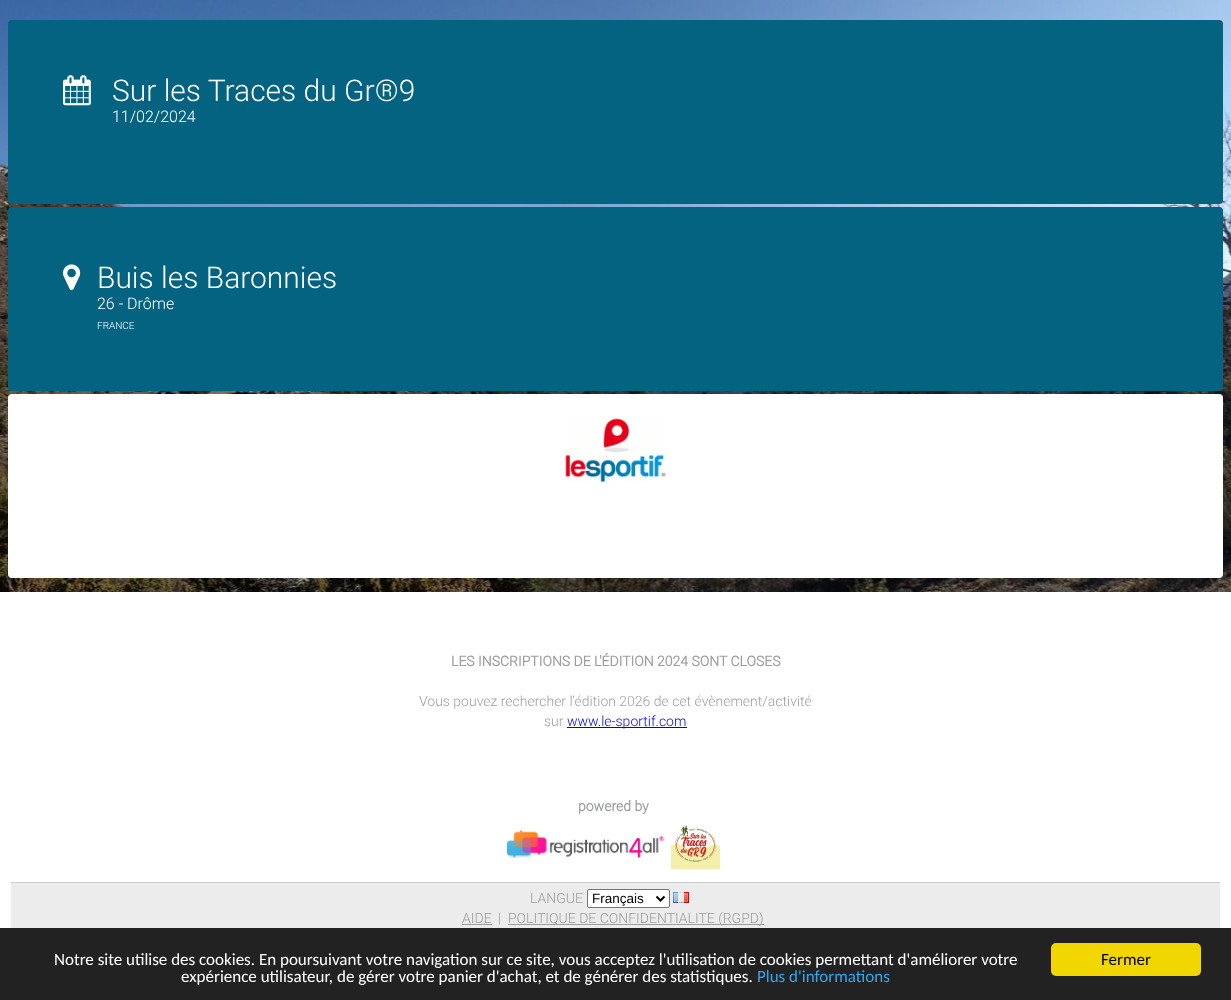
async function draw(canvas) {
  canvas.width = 1231
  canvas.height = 1000
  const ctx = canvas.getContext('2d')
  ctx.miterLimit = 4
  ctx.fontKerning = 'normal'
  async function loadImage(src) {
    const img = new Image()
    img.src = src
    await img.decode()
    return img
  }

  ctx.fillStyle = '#fff'
  ctx.fillRect(0, 0, 1231, 1000)
  ctx.drawImage(await loadImage('image0.png'), 0, 0, 1231, 592)
  ctx.fillStyle = '#046380'
  ctx.beginPath()
  ctx.roundRect(8, 20, 1215, 184, 4)
  ctx.fill()
  ctx.drawImage(await loadImage('image1.png'), 63, 75, 28, 31)
  ctx.font = '300 30px Roboto'
  ctx.fillStyle = '#fff'
  ctx.fillText('Sur les Traces du Gr®9', 112, 101)
  ctx.font = '300 16px Roboto'
  ctx.fillText('11/02/2024', 112, 122)
  ctx.fillStyle = '#046380'
  ctx.beginPath()
  ctx.roundRect(8, 207, 1215, 184, 4)
  ctx.fill()
  ctx.drawImage(await loadImage('image2.png'), 63, 264, 18, 27)
  ctx.font = '300 30px Roboto'
  ctx.fillStyle = '#fff'
  ctx.fillText('Buis les Baronnies', 97, 288)
  ctx.font = '300 16px Roboto'
  ctx.fillText('26 - Drôme', 97, 309)
  ctx.font = '300 10px Roboto'
  ctx.fillText('FRANCE', 97, 329)
  ctx.beginPath()
  ctx.roundRect(8, 394, 1215, 184, 4)
  ctx.fill()
  ctx.drawImage(await loadImage('image3.png'), 565, 418, 102, 65)
  ctx.font = 'bold 14px Roboto'
  ctx.fillStyle = '#9c9e9f'
  ctx.fillText('LES INSCRIPTIONS DE L\'ÉDITION 2024 SONT CLOSES', 451, 666)
  ctx.font = '300 14px Roboto'
  ctx.fillText('Vous pouvez rechercher l\'édition 2026 de cet évènement/activité', 419, 706)
  ctx.fillText('sur', 544, 726)
  ctx.fillStyle = '#00e'
  ctx.fillRect(567, 727, 120, 1)
  ctx.fillText('www.le-sportif.com', 567, 726)
  ctx.font = 'bold 14px Roboto'
  ctx.fillStyle = '#9c9e9f'
  ctx.fillText('powered by', 578, 811)
  ctx.drawImage(await loadImage('image4.png'), 507, 829, 158, 30)
  ctx.drawImage(await loadImage('image5.png'), 671, 825, 49, 44)
  ctx.fillStyle = '#ececec'
  ctx.fillRect(11, 883, 1209, 45)
  ctx.fillStyle = '#ccc'
  ctx.fillRect(11, 882, 1209, 1)
  ctx.font = '300 14px Roboto'
  ctx.fillStyle = '#9c9e9f'
  ctx.fillText('LANGUE', 530, 903)
  ctx.fillStyle = '#fff'
  ctx.beginPath()
  ctx.roundRect(587.5, 889.5, 82, 18, 1.5)
  ctx.fill()
  ctx.strokeStyle = '#767676'
  ctx.stroke()
  ctx.beginPath()
  ctx.moveTo(656.5, 896.5)
  ctx.lineTo(660.5, 900.5)
  ctx.lineTo(664.5, 896.5)
  ctx.strokeStyle = '#000'
  ctx.lineWidth = 2
  ctx.stroke()
  ctx.font = '13.5px Liberation Sans'
  ctx.fillStyle = '#000'
  ctx.fillText('Français', 592, 903)
  ctx.drawImage(await loadImage('image6.png'), 673, 892, 16, 11)
  ctx.font = '300 14px Roboto'
  ctx.fillStyle = '#9c9e9f'
  ctx.fillText('AIDE', 462, 923)
  ctx.fillRect(462, 924, 30, 1)
  ctx.fillText('|', 498, 923)
  ctx.fillRect(508, 924, 256, 1)
  ctx.fillText('POLITIQUE DE CONFIDENTIALITE (RGPD)', 508, 923)
  ctx.fillStyle = '#222'
  ctx.fillRect(0, 928, 1231, 72)
  ctx.font = '17px Carlito'
  ctx.fillStyle = '#fff'
  ctx.fillText('Notre site utilise des cookies. En poursuivant votre navigation sur ce site, vous acceptez l\'utilisation de cookies permettant d\'améliorer votre', 54, 965)
  ctx.fillText('expérience utilisateur, de gérer votre panier d\'achat, et de générer des statistiques.', 181, 982)
  ctx.fillStyle = '#31a8f0'
  ctx.fillText('Plus d\'informations', 757, 982)
  ctx.fillStyle = '#f1d600'
  ctx.beginPath()
  ctx.roundRect(1051, 943, 150, 33, 5)
  ctx.fill()
  ctx.fillStyle = '#000'
  ctx.fillText('Fermer', 1101, 965)
}

draw(document.querySelector('canvas'))
